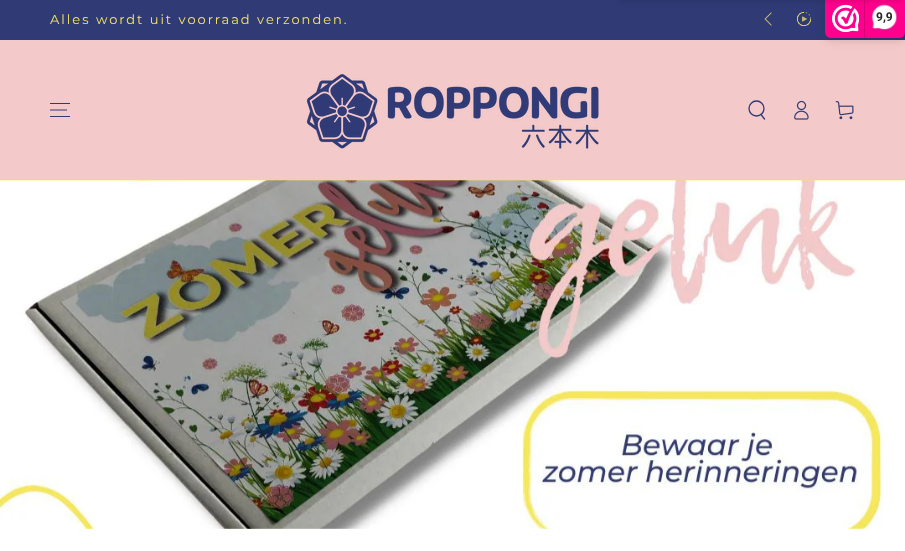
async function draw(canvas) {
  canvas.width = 905
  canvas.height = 551
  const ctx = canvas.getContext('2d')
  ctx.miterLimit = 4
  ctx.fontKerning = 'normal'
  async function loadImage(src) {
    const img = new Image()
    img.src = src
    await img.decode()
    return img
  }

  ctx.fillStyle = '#fff'
  ctx.fillRect(0, 0, 905, 551)
  ctx.fillStyle = '#303b76'
  ctx.fillRect(0, 0, 905, 40)
  ctx.letterSpacing = '2px'
  ctx.font = '13px Montserrat'
  ctx.fillStyle = '#f7e75d'
  ctx.fillText('Alles wordt uit voorraad verzonden.', 50, 24)
  ctx.drawImage(await loadImage('image0.png'), 764, 12, 8, 14)
  ctx.drawImage(await loadImage('image1.png'), 797, 12, 14, 14)
  ctx.drawImage(await loadImage('image5.png'), 0, 180, 884, 349)
  ctx.fillStyle = '#f7e75d4d'
  ctx.fillRect(0, 180, 905, 1)
  ctx.fillStyle = '#f4c9c9'
  ctx.fillRect(0, 40, 905, 140)
  ctx.beginPath()
  ctx.moveTo(50, 116.5)
  ctx.lineTo(70, 116.5)
  ctx.moveTo(50, 110)
  ctx.lineTo(67, 110)
  ctx.moveTo(50, 103.5)
  ctx.lineTo(70, 103.5)
  ctx.strokeStyle = '#303b76'
  ctx.lineWidth = 1.2
  ctx.stroke()
  ctx.drawImage(await loadImage('image2.png'), 306, 74, 293, 75)
  ctx.beginPath()
  ctx.arc(756.5, 108.5, 7.5, 0, 2 * Math.PI)
  ctx.lineWidth = 1.3
  ctx.stroke()
  ctx.beginPath()
  ctx.moveTo(761, 114.5)
  ctx.lineTo(764.5, 119)
  ctx.lineCap = 'round'
  ctx.stroke()
  ctx.drawImage(await loadImage('image3.png'), 794, 100, 15, 20)
  ctx.drawImage(await loadImage('image4.png'), 835, 101, 19, 19)
  ctx.fillStyle = '#00000026'
  ctx.filter = 'blur(5px)'
  ctx.beginPath()
  ctx.roundRect(825, 0, 80, 40, 6)
  ctx.fill()
  ctx.filter = 'none'
  ctx.fillStyle = '#fe008c'
  ctx.beginPath()
  ctx.moveTo(825, -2)
  ctx.lineTo(905, -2)
  ctx.lineTo(905, 32)
  ctx.bezierCurveTo(905, 35.5, 902.5, 38, 899, 38)
  ctx.lineTo(831, 38)
  ctx.bezierCurveTo(827.5, 38, 825, 35.5, 825, 32)
  ctx.closePath()
  ctx.fill()
  ctx.drawImage(await loadImage('image6.png'), 832, 4, 27, 28)
  ctx.fillStyle = '#d80077'
  ctx.fillRect(864, 0, 1, 38)
  ctx.drawImage(await loadImage('image7.png'), 871, 4, 26, 26)
  ctx.fillStyle = '#0000001a'
  ctx.filter = 'blur(2px)'
  ctx.beginPath()
  ctx.roundRect(615, -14, 290, 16, 8)
  ctx.fill()
  ctx.filter = 'none'
  ctx.letterSpacing = '0px'
  ctx.font = 'bold 12px Roboto'
  ctx.fillStyle = '#272626'
  ctx.fillText('9,9', 876, 21)
}

draw(document.querySelector('canvas'))
